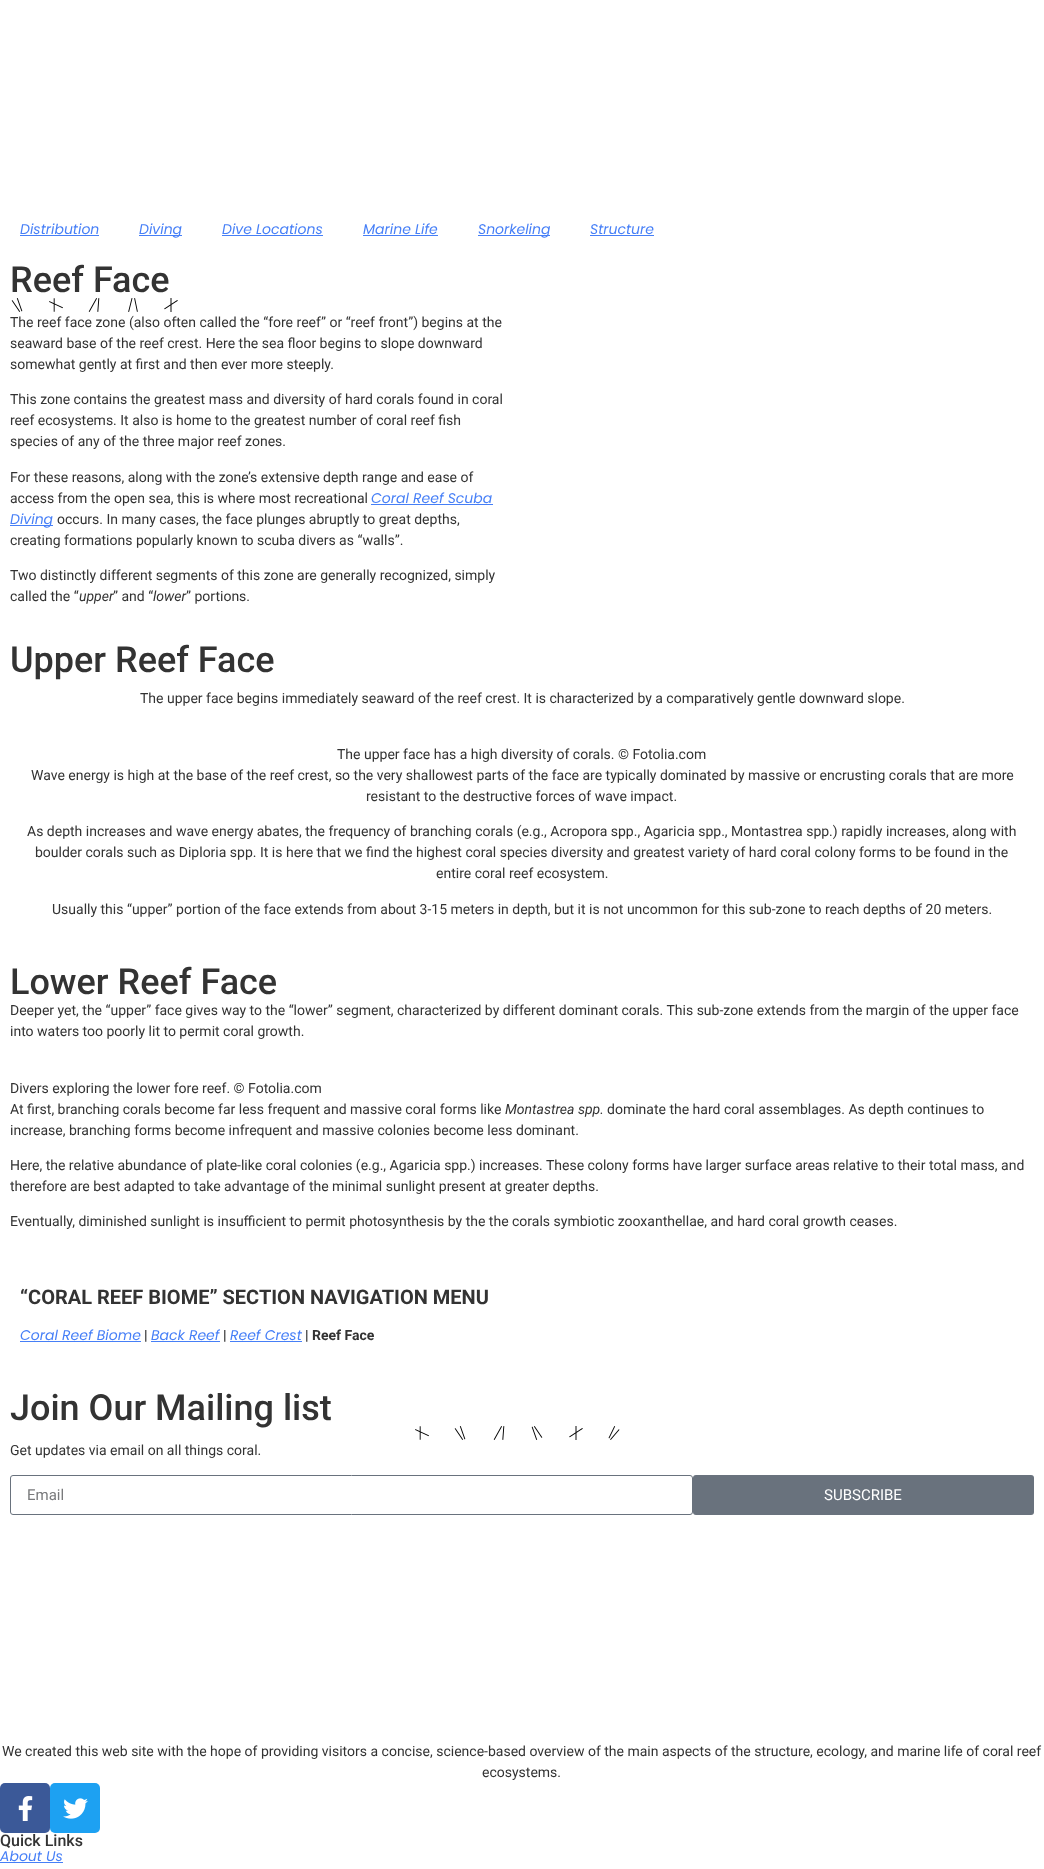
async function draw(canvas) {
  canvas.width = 1044
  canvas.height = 1869
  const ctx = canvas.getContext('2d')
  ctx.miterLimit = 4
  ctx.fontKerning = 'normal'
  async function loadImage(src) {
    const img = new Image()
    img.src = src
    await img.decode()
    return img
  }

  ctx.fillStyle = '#fff'
  ctx.fillRect(0, 0, 1044, 1869)
  ctx.font = 'italic 14px Poppins'
  ctx.fillStyle = '#467ff7'
  ctx.fillText('Distribution', 20, 234)
  ctx.fillRect(20, 235, 79, 1)
  ctx.fillRect(139, 235, 43, 1)
  ctx.fillText('Diving', 139, 234)
  ctx.fillText('Dive Locations', 222, 234)
  ctx.fillRect(222, 235, 101, 1)
  ctx.fillText('Marine Life', 363, 234)
  ctx.fillRect(363, 235, 75, 1)
  ctx.fillRect(478, 235, 72, 1)
  ctx.fillText('Snorkeling', 478, 234)
  ctx.fillText('Structure', 590, 234)
  ctx.fillRect(590, 235, 64, 1)
  ctx.font = '500 36px Roboto'
  ctx.fillStyle = '#333'
  ctx.fillText('Reef Face', 10, 292)
  ctx.drawImage(await loadImage('image0.png'), 11, 298, 12, 14)
  ctx.drawImage(await loadImage('image1.png'), 49, 298, 14, 14)
  ctx.drawImage(await loadImage('image2.png'), 88, 298, 12, 14)
  ctx.drawImage(await loadImage('image3.png'), 128, 298, 10, 14)
  ctx.drawImage(await loadImage('image4.png'), 164, 298, 14, 14)
  ctx.font = '14px Roboto'
  ctx.fillText('The reef face zone (also often called the “fore reef” or “reef front”) begins at the', 10, 327)
  ctx.fillText('seaward base of the reef crest. Here the sea floor begins to slope downward', 10, 348)
  ctx.fillText('somewhat gently at first and then ever more steeply.', 10, 369)
  ctx.fillText('This zone contains the greatest mass and diversity of hard corals found in coral', 10, 404)
  ctx.fillText('reef ecosystems. It also is home to the greatest number of coral reef fish', 10, 425)
  ctx.fillText('species of any of the three major reef zones.', 10, 446)
  ctx.fillText('For these reasons, along with the zone’s extensive depth range and ease of', 10, 482)
  ctx.fillText('access from the open sea, this is where most recreational', 10, 503)
  ctx.font = 'italic 14px Poppins'
  ctx.fillStyle = '#467ff7'
  ctx.fillText('Coral Reef Scuba', 371, 503)
  ctx.fillRect(371, 504, 122, 1)
  ctx.fillRect(10, 525, 43, 1)
  ctx.fillText('Diving', 10, 524)
  ctx.font = '14px Roboto'
  ctx.fillStyle = '#333'
  ctx.fillText('occurs. In many cases, the face plunges abruptly to great depths,', 57, 524)
  ctx.fillText('creating formations popularly known to scuba divers as “walls”.', 10, 545)
  ctx.fillText('Two distinctly different segments of this zone are generally recognized, simply', 10, 580)
  ctx.fillText('called the “', 10, 601)
  ctx.font = 'italic 14px Roboto'
  ctx.fillText('upper', 79, 601)
  ctx.font = '14px Roboto'
  ctx.fillText('” and “', 113, 601)
  ctx.font = 'italic 14px Roboto'
  ctx.fillText('lower', 153, 601)
  ctx.font = '14px Roboto'
  ctx.fillText('” portions.', 186, 601)
  ctx.font = '500 36px Roboto'
  ctx.fillText('Upper Reef Face', 10, 672)
  ctx.font = '14px Roboto'
  ctx.fillText('The upper face begins immediately seaward of the reef crest. It is characterized by a comparatively gentle downward slope.', 140, 703)
  ctx.fillText('The upper face has a high diversity of corals. © Fotolia.com', 337, 759)
  ctx.fillText('Wave energy is high at the base of the reef crest, so the very shallowest parts of the face are typically dominated by massive or encrusting corals that are more', 31, 780)
  ctx.fillText('resistant to the destructive forces of wave impact.', 366, 801)
  ctx.fillText('As depth increases and wave energy abates, the frequency of branching corals (e.g., Acropora spp., Agaricia spp., Montastrea spp.) rapidly increases, along with', 27, 836)
  ctx.fillText('boulder corals such as Diploria spp. It is here that we find the highest coral species diversity and greatest variety of hard coral colony forms to be found in the', 35, 857)
  ctx.fillText('entire coral reef ecosystem.', 436, 878)
  ctx.fillText('Usually this “upper” portion of the face extends from about 3-15 meters in depth, but it is not uncommon for this sub-zone to reach depths of 20 meters.', 52, 914)
  ctx.font = '500 36px Roboto'
  ctx.fillText('Lower Reef Face', 10, 994)
  ctx.font = '14px Roboto'
  ctx.fillText('Deeper yet, the “upper” face gives way to the “lower” segment, characterized by different dominant corals. This sub-zone extends from the margin of the upper face', 10, 1015)
  ctx.fillText('into waters too poorly lit to permit coral growth.', 10, 1036)
  ctx.fillText('Divers exploring the lower fore reef. © Fotolia.com', 10, 1093)
  ctx.fillText('At first, branching corals become far less frequent and massive coral forms like', 10, 1114)
  ctx.font = 'italic 14px Roboto'
  ctx.fillText('Montastrea spp.', 505, 1114)
  ctx.font = '14px Roboto'
  ctx.fillText('dominate the hard coral assemblages. As depth continues to', 607, 1114)
  ctx.fillText('increase, branching forms become infrequent and massive colonies become less dominant.', 10, 1135)
  ctx.fillText('Here, the relative abundance of plate-like coral colonies (e.g., Agaricia spp.) increases. These colony forms have larger surface areas relative to their total mass, and', 10, 1170)
  ctx.fillText('therefore are best adapted to take advantage of the minimal sunlight present at greater depths.', 10, 1191)
  ctx.fillText('Eventually, diminished sunlight is insufficient to permit photosynthesis by the the corals symbiotic zooxanthellae, and hard coral growth ceases.', 10, 1226)
  ctx.font = 'bold 20px Roboto'
  ctx.fillText('“CORAL REEF BIOME” SECTION NAVIGATION MENU', 20, 1304)
  ctx.font = 'italic 14px Poppins'
  ctx.fillStyle = '#467ff7'
  ctx.fillText('Coral Reef Biome', 20, 1340)
  ctx.fillRect(20, 1341, 121, 1)
  ctx.font = 'bold 14px Roboto'
  ctx.fillStyle = '#333'
  ctx.fillText('|', 144, 1340)
  ctx.font = 'italic 14px Poppins'
  ctx.fillStyle = '#467ff7'
  ctx.fillText('Back Reef', 151, 1340)
  ctx.fillRect(151, 1341, 69, 1)
  ctx.font = 'bold 14px Roboto'
  ctx.fillStyle = '#333'
  ctx.fillText('|', 223, 1340)
  ctx.font = 'italic 14px Poppins'
  ctx.fillStyle = '#467ff7'
  ctx.fillText('Reef Crest', 230, 1340)
  ctx.fillRect(230, 1341, 72, 1)
  ctx.font = 'bold 14px Roboto'
  ctx.fillStyle = '#333'
  ctx.fillText('| Reef Face', 305, 1340)
  ctx.font = '500 36px Roboto'
  ctx.fillText('Join Our Mailing list', 10, 1420)
  ctx.drawImage(await loadImage('image1.png'), 415, 1426, 14, 14)
  ctx.drawImage(await loadImage('image0.png'), 454, 1426, 12, 14)
  ctx.drawImage(await loadImage('image2.png'), 493, 1426, 12, 14)
  ctx.drawImage(await loadImage('image5.png'), 531, 1426, 12, 14)
  ctx.drawImage(await loadImage('image4.png'), 569, 1426, 14, 14)
  ctx.drawImage(await loadImage('image6.png'), 608, 1426, 12, 14)
  ctx.font = '14px Roboto'
  ctx.fillText('Get updates via email on all things coral.', 10, 1455)
  ctx.beginPath()
  ctx.roundRect(10.5, 1475.5, 682, 39, 2.5)
  ctx.strokeStyle = '#69727d'
  ctx.stroke()
  ctx.font = '15px Roboto'
  ctx.fillStyle = '#797a7c'
  ctx.fillText('Email', 27, 1500)
  ctx.fillStyle = '#69727d'
  ctx.beginPath()
  ctx.roundRect(693, 1475, 341, 40, 3)
  ctx.fill()
  ctx.fillStyle = '#fff'
  ctx.fillText('SUBSCRIBE', 824, 1500)
  ctx.font = '14px Roboto'
  ctx.fillStyle = '#333'
  ctx.fillText('We created this web site with the hope of providing visitors a concise, science-based overview of the main aspects of the structure, ecology, and marine life of coral reef', 2, 1756)
  ctx.fillText('ecosystems.', 482, 1777)
  ctx.fillStyle = '#3b5998'
  ctx.beginPath()
  ctx.roundRect(0, 1783, 50, 50, 5)
  ctx.fill()
  ctx.drawImage(await loadImage('image7.png'), 18, 1796, 15, 25)
  ctx.fillStyle = '#1da1f2'
  ctx.beginPath()
  ctx.roundRect(50, 1783, 50, 50, 5)
  ctx.fill()
  ctx.drawImage(await loadImage('image8.png'), 63, 1798, 25, 21)
  ctx.font = '500 16px Roboto'
  ctx.fillStyle = '#333'
  ctx.fillText('Quick Links', 0, 1846)
  ctx.font = 'italic 14px Poppins'
  ctx.fillStyle = '#467ff7'
  ctx.fillText('About Us', 0, 1861)
  ctx.fillRect(0, 1862, 63, 1)
}

draw(document.querySelector('canvas'))
